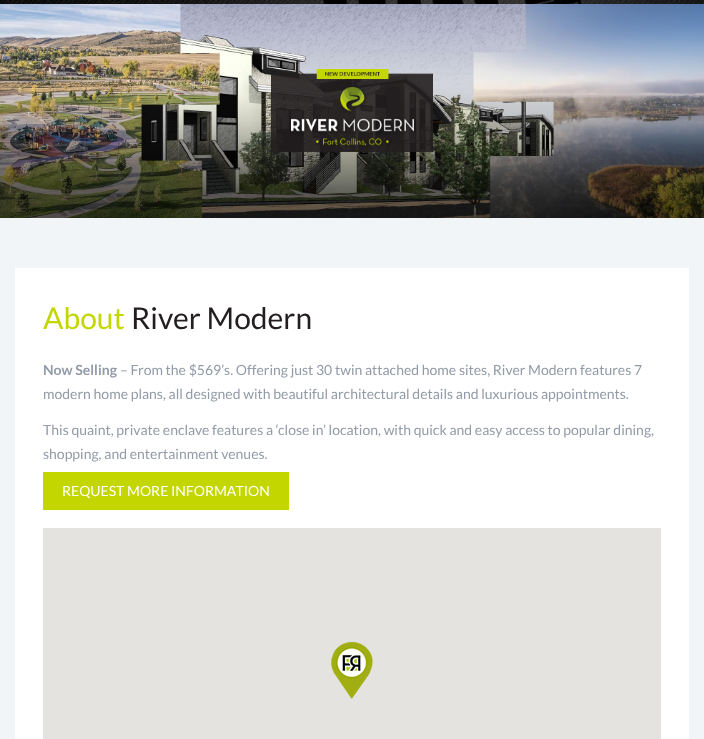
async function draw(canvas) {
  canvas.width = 704
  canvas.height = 739
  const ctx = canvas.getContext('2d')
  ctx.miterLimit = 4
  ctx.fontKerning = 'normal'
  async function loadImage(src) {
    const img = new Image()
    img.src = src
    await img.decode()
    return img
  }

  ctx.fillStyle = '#f1f5f8'
  ctx.fillRect(0, 0, 704, 739)
  ctx.drawImage(await loadImage('image0.png'), 0, 0, 704, 4)
  ctx.drawImage(await loadImage('image1.png'), 0, 4, 704, 214)
  ctx.drawImage(await loadImage('image2.png'), 271, 69, 162, 83)
  ctx.fillStyle = '#fff'
  ctx.fillRect(15, 268, 674, 471)
  ctx.font = '30px Lato'
  ctx.fillStyle = '#c4d600'
  ctx.fillText('About', 43, 329)
  ctx.fillStyle = '#231f20'
  ctx.fillText('River Modern', 131, 329)
  ctx.font = 'bold 14px Lato'
  ctx.fillStyle = '#929ba7'
  ctx.fillText('Now Selling', 43, 375)
  ctx.font = '14px Lato'
  ctx.fillText('– From the $569’s. Offering just 30 twin attached home sites, River Modern features 7', 120, 375)
  ctx.fillText('modern home plans, all designed with beautiful architectural details and luxurious appointments.', 43, 399)
  ctx.fillText('This quaint, private enclave features a ‘close in’ location, with quick and easy access to popular dining,', 43, 435)
  ctx.fillText('shopping, and entertainment venues.', 43, 459)
  ctx.fillStyle = '#c4d600'
  ctx.fillRect(43, 472, 246, 38)
  ctx.fillStyle = '#fff'
  ctx.fillText('REQUEST MORE INFORMATION', 62, 496)
  ctx.fillStyle = '#e5e3df'
  ctx.fillRect(43, 528, 618, 211)
  ctx.drawImage(await loadImage('image3.png'), 331, 642, 42, 57)
}

draw(document.querySelector('canvas'))
